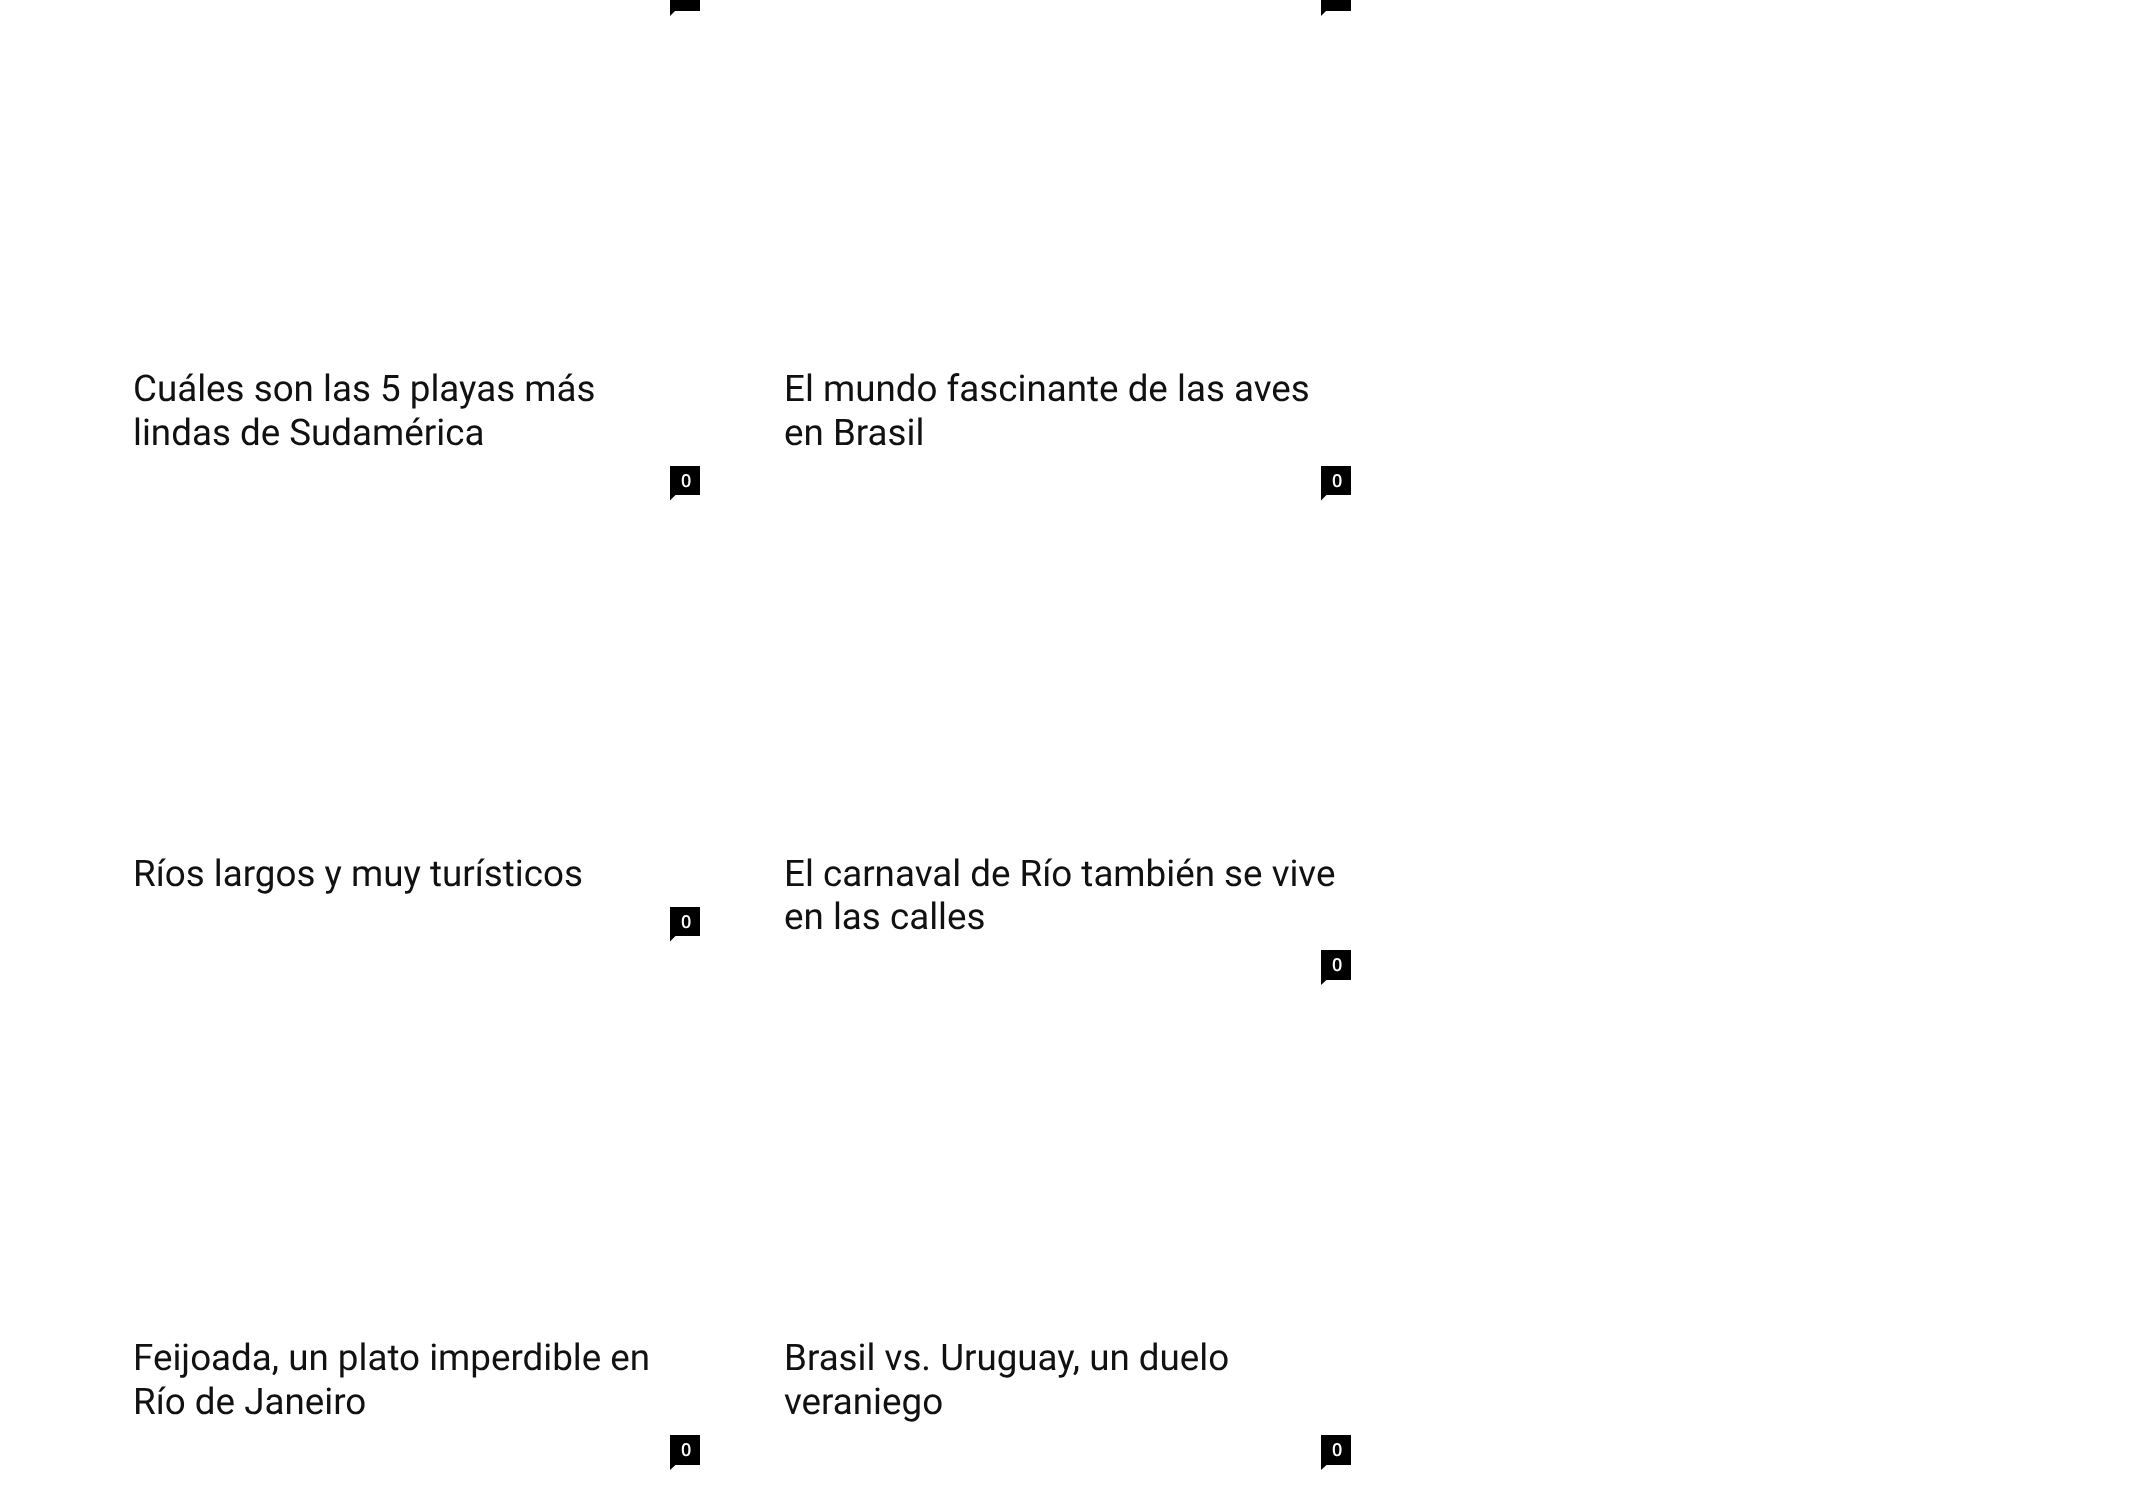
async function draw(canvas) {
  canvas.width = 2134
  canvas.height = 1504
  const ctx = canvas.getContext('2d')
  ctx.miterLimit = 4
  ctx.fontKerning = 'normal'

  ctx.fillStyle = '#fff'
  ctx.fillRect(0, 0, 2134, 1504)
  ctx.fillStyle = '#000'
  ctx.fillRect(670, 0, 30, 11)
  ctx.beginPath()
  ctx.moveTo(670, 10.5)
  ctx.lineTo(675.5, 10.5)
  ctx.lineTo(670, 16)
  ctx.closePath()
  ctx.fill()
  ctx.fillRect(1321, 0, 30, 11)
  ctx.beginPath()
  ctx.moveTo(1321, 10.5)
  ctx.lineTo(1326.5, 10.5)
  ctx.lineTo(1321, 16)
  ctx.closePath()
  ctx.fill()
  ctx.font = '36.75px Roboto'
  ctx.fillStyle = '#111'
  ctx.fillText('Cuáles son las 5 playas más', 133, 401)
  ctx.fillText('lindas de Sudamérica', 133, 445)
  ctx.fillStyle = '#000'
  ctx.fillRect(670, 466, 30, 29)
  ctx.font = '600 18px Open Sans'
  ctx.fillStyle = '#fff'
  ctx.fillText('0', 681, 487)
  ctx.fillStyle = '#000'
  ctx.beginPath()
  ctx.moveTo(670, 495)
  ctx.lineTo(675.5, 495)
  ctx.lineTo(670, 500.5)
  ctx.closePath()
  ctx.fill()
  ctx.font = '36.75px Roboto'
  ctx.fillStyle = '#111'
  ctx.fillText('El mundo fascinante de las aves', 784, 401)
  ctx.fillText('en Brasil', 784, 445)
  ctx.fillStyle = '#000'
  ctx.fillRect(1321, 466, 30, 29)
  ctx.font = '600 18px Open Sans'
  ctx.fillStyle = '#fff'
  ctx.fillText('0', 1332, 487)
  ctx.fillStyle = '#000'
  ctx.beginPath()
  ctx.moveTo(1321, 495)
  ctx.lineTo(1326.5, 495)
  ctx.lineTo(1321, 500.5)
  ctx.closePath()
  ctx.fill()
  ctx.font = '36.75px Roboto'
  ctx.fillStyle = '#111'
  ctx.fillText('Ríos largos y muy turísticos', 133, 886)
  ctx.fillStyle = '#000'
  ctx.fillRect(670, 907, 30, 29)
  ctx.font = '600 18px Open Sans'
  ctx.fillStyle = '#fff'
  ctx.fillText('0', 681, 928)
  ctx.fillStyle = '#000'
  ctx.beginPath()
  ctx.moveTo(670, 936)
  ctx.lineTo(675.5, 936)
  ctx.lineTo(670, 941.5)
  ctx.closePath()
  ctx.fill()
  ctx.font = '36.75px Roboto'
  ctx.fillStyle = '#111'
  ctx.fillText('El carnaval de Río también se vive', 784, 886)
  ctx.fillText('en las calles', 784, 929)
  ctx.fillStyle = '#000'
  ctx.fillRect(1321, 950, 30, 30)
  ctx.font = '600 18px Open Sans'
  ctx.fillStyle = '#fff'
  ctx.fillText('0', 1332, 971)
  ctx.fillStyle = '#000'
  ctx.beginPath()
  ctx.moveTo(1321, 980)
  ctx.lineTo(1326.5, 980)
  ctx.lineTo(1321, 985)
  ctx.closePath()
  ctx.fill()
  ctx.font = '36.75px Roboto'
  ctx.fillStyle = '#111'
  ctx.fillText('Feijoada, un plato imperdible en', 133, 1370)
  ctx.fillText('Río de Janeiro', 133, 1414)
  ctx.fillStyle = '#000'
  ctx.fillRect(670, 1435, 30, 30)
  ctx.font = '600 18px Open Sans'
  ctx.fillStyle = '#fff'
  ctx.fillText('0', 681, 1456)
  ctx.fillStyle = '#000'
  ctx.beginPath()
  ctx.moveTo(670, 1465)
  ctx.lineTo(675.5, 1465)
  ctx.lineTo(670, 1470)
  ctx.closePath()
  ctx.fill()
  ctx.font = '36.75px Roboto'
  ctx.fillStyle = '#111'
  ctx.fillText('Brasil vs. Uruguay, un duelo', 784, 1370)
  ctx.fillText('veraniego', 784, 1414)
  ctx.fillStyle = '#000'
  ctx.fillRect(1321, 1435, 30, 30)
  ctx.font = '600 18px Open Sans'
  ctx.fillStyle = '#fff'
  ctx.fillText('0', 1332, 1456)
  ctx.fillStyle = '#000'
  ctx.beginPath()
  ctx.moveTo(1321, 1465)
  ctx.lineTo(1326.5, 1465)
  ctx.lineTo(1321, 1470)
  ctx.closePath()
  ctx.fill()
}

draw(document.querySelector('canvas'))
